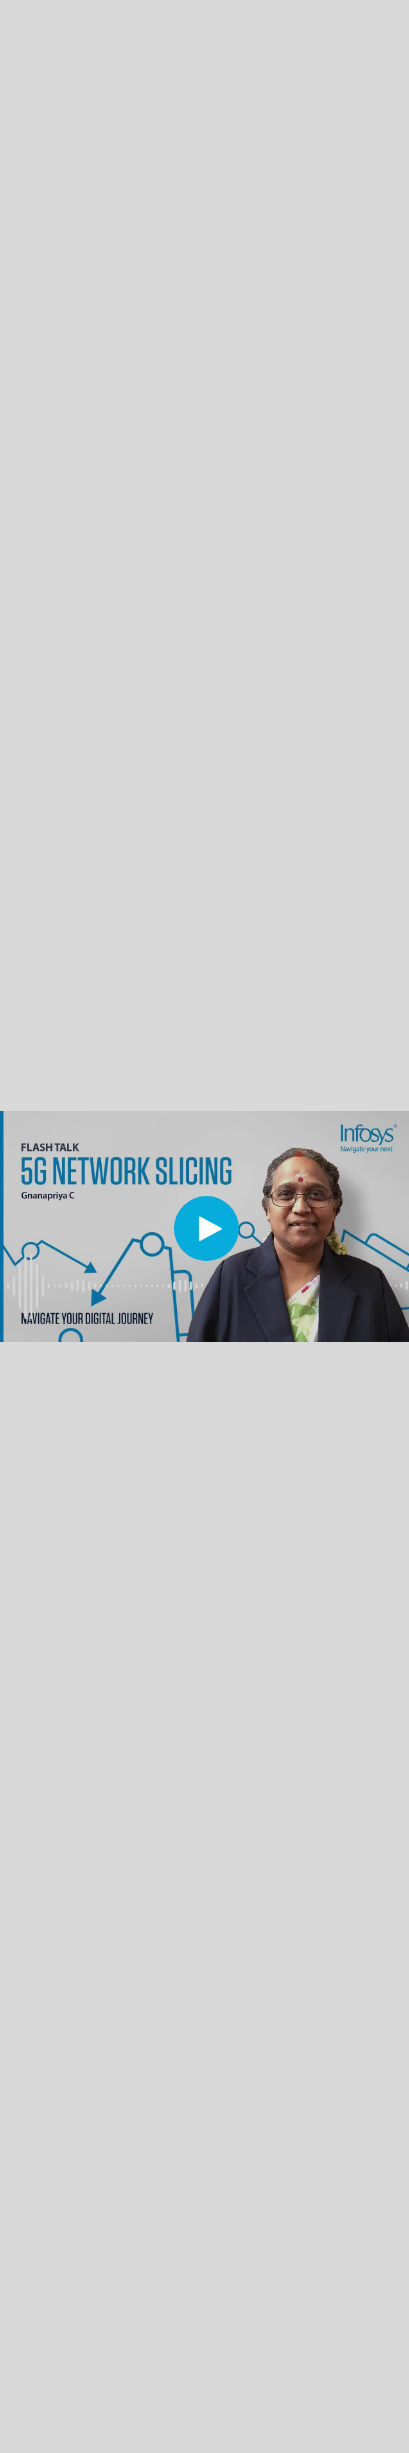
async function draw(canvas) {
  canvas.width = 409
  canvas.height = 2453
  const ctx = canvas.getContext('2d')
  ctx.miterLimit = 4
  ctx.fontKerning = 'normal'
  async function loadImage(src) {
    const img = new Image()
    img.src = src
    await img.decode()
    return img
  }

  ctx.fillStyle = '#d9d9d9'
  ctx.fillRect(0, 0, 409, 2453)
  ctx.drawImage(await loadImage('image0.png'), 0, 1111, 409, 231)
  ctx.fillStyle = '#06acdc'
  ctx.beginPath()
  ctx.arc(206.5, 1228.5, 32.5, 0, 2 * Math.PI)
  ctx.fill()
  ctx.drawImage(await loadImage('image1.png'), 198, 1216, 24, 25)
}

draw(document.querySelector('canvas'))
